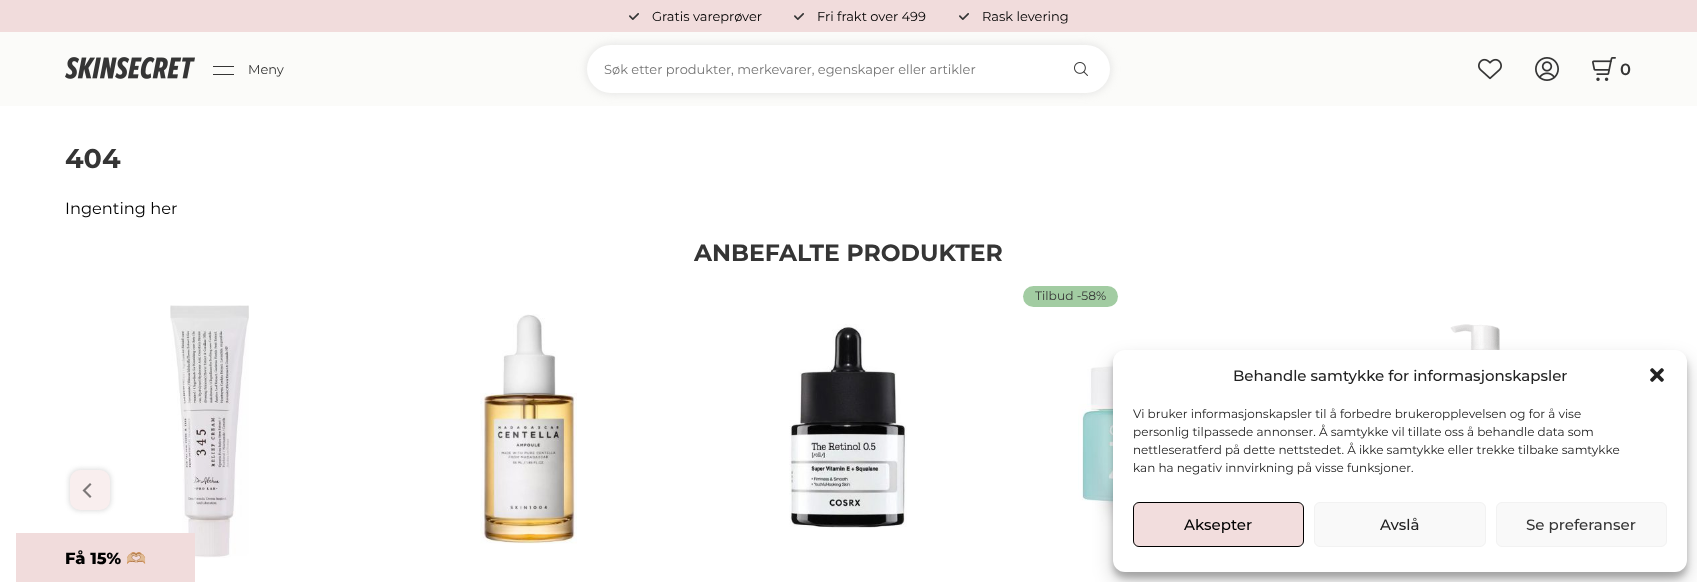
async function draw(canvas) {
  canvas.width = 1697
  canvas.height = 582
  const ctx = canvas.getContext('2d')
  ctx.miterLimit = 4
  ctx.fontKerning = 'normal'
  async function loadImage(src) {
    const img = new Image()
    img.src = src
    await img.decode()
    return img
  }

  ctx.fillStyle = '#fff'
  ctx.fillRect(0, 0, 1697, 582)
  ctx.fillStyle = '#fbfbf9'
  ctx.fillRect(0, 32, 1697, 74)
  ctx.fillStyle = '#f1dcdc'
  ctx.fillRect(0, 0, 1697, 32)
  ctx.drawImage(await loadImage('image0.png'), 629, 13, 10, 7)
  ctx.font = '100 13px Montserrat'
  ctx.fillStyle = '#000'
  ctx.fillText('Gratis vareprøver', 652, 21)
  ctx.drawImage(await loadImage('image0.png'), 794, 13, 10, 7)
  ctx.fillText('Fri frakt over 499', 817, 21)
  ctx.drawImage(await loadImage('image0.png'), 959, 13, 10, 7)
  ctx.fillText('Rask levering', 982, 21)
  ctx.drawImage(await loadImage('image1.png'), 65, 57, 130, 22)
  ctx.fillStyle = '#353535'
  ctx.fillRect(213, 66, 21, 1)
  ctx.fillRect(213, 74, 21, 1)
  ctx.fillText('Meny', 248, 74)
  ctx.fillStyle = '#c8c8c880'
  ctx.filter = 'blur(5px)'
  ctx.beginPath()
  ctx.roundRect(587, 45, 523, 48, 24)
  ctx.fill()
  ctx.filter = 'none'
  ctx.fillStyle = '#fff'
  ctx.beginPath()
  ctx.roundRect(587, 45, 523, 48, 24)
  ctx.fill()
  ctx.fillStyle = '#757575'
  ctx.fillText('Søk etter produkter, merkevarer, egenskaper eller artikler', 604, 74)
  ctx.drawImage(await loadImage('image2.png'), 1074, 62, 14, 14)
  ctx.drawImage(await loadImage('image3.png'), 1478, 58, 24, 22)
  ctx.drawImage(await loadImage('image4.png'), 1535, 57, 24, 24)
  ctx.drawImage(await loadImage('image5.png'), 1592, 57, 24, 24)
  ctx.font = '600 16.25px Montserrat'
  ctx.fillStyle = '#353535'
  ctx.fillText('0', 1620, 75)
  ctx.font = 'bold 27px Montserrat'
  ctx.fillText('404', 65, 168)
  ctx.font = '100 16.25px Montserrat'
  ctx.fillStyle = '#000'
  ctx.fillText('Ingenting her', 65, 214)
  ctx.font = 'bold 23.5px Montserrat'
  ctx.fillStyle = '#353535'
  ctx.fillText('ANBEFALTE PRODUKTER', 694, 261)
  ctx.fillStyle = '#a2cca2'
  ctx.beginPath()
  ctx.roundRect(1023, 286, 95, 21, 10.5)
  ctx.fill()
  ctx.font = '100 12.25px Montserrat'
  ctx.fillStyle = '#353535'
  ctx.fillText('Tilbud -58%', 1035, 300)
  ctx.drawImage(await loadImage('image6.png'), 1078, 365, 35, 161)
  ctx.drawImage(await loadImage('image7.png'), 170, 305, 79, 253)
  ctx.drawImage(await loadImage('image8.png'), 480, 314, 97, 230)
  ctx.drawImage(await loadImage('image9.png'), 789, 324, 118, 204)
  ctx.drawImage(await loadImage('image10.png'), 1450, 324, 69, 26)
  ctx.fillStyle = '#ddd'
  ctx.filter = 'blur(2.5px)'
  ctx.beginPath()
  ctx.roundRect(69, 469, 42, 42, 11)
  ctx.fill()
  ctx.filter = 'none'
  ctx.fillStyle = '#f9eeee'
  ctx.beginPath()
  ctx.roundRect(70, 470, 40, 40, 10)
  ctx.fill()
  ctx.drawImage(await loadImage('image11.png'), 82, 483, 10, 15)
  ctx.fillStyle = '#0000003b'
  ctx.filter = 'blur(3px)'
  ctx.beginPath()
  ctx.roundRect(1113, 356, 574, 222, 12)
  ctx.fill()
  ctx.filter = 'none'
  ctx.fillStyle = '#00000030'
  ctx.filter = 'blur(10px)'
  ctx.beginPath()
  ctx.roundRect(1113, 360, 574, 222, 12)
  ctx.fill()
  ctx.filter = 'none'
  ctx.fillStyle = '#fff'
  ctx.beginPath()
  ctx.roundRect(1113, 350, 574, 222, 12)
  ctx.fill()
  ctx.font = '500 15px Montserrat'
  ctx.fillStyle = '#222'
  ctx.fillText('Behandle samtykke for informasjonskapsler', 1233, 381)
  ctx.drawImage(await loadImage('image12.png'), 1650, 368, 14, 14)
  ctx.font = '100 12px Montserrat'
  ctx.fillText('Vi bruker informasjonskapsler til å forbedre brukeropplevelsen og for å vise', 1133, 418)
  ctx.fillText('personlig tilpassede annonser. Å samtykke vil tillate oss å behandle data som', 1133, 436)
  ctx.fillText('nettleseratferd på dette nettstedet. Å ikke samtykke eller trekke tilbake samtykke', 1133, 454)
  ctx.fillText('kan ha negativ innvirkning på visse funksjoner.', 1133, 472)
  ctx.fillStyle = '#f2dddd'
  ctx.beginPath()
  ctx.roundRect(1133.5, 502.5, 170, 44, 5.5)
  ctx.fill()
  ctx.strokeStyle = '#000'
  ctx.stroke()
  ctx.font = '500 15px Montserrat'
  ctx.fillStyle = '#000'
  ctx.fillText('Aksepter', 1184, 530)
  ctx.fillStyle = '#f9f9f9'
  ctx.beginPath()
  ctx.roundRect(1314.5, 502.5, 171, 44, 5.5)
  ctx.fill()
  ctx.strokeStyle = '#f2f2f2'
  ctx.stroke()
  ctx.fillStyle = '#222'
  ctx.fillText('Avslå', 1380, 530)
  ctx.fillStyle = '#f9f9f9'
  ctx.beginPath()
  ctx.roundRect(1496.5, 502.5, 170, 44, 5.5)
  ctx.fill()
  ctx.stroke()
  ctx.fillStyle = '#353535'
  ctx.fillText('Se preferanser', 1526, 530)
  ctx.fillStyle = '#f1dcdc'
  ctx.fillRect(16, 533, 179, 49)
  ctx.font = '800 16.25px Montserrat'
  ctx.fillStyle = '#000'
  ctx.fillText('Få 15%', 65, 564)
  ctx.font = 'bold 16.25px Noto Color Emoji'
  ctx.fillText('🫶🏼', 126, 564)
}

draw(document.querySelector('canvas'))
